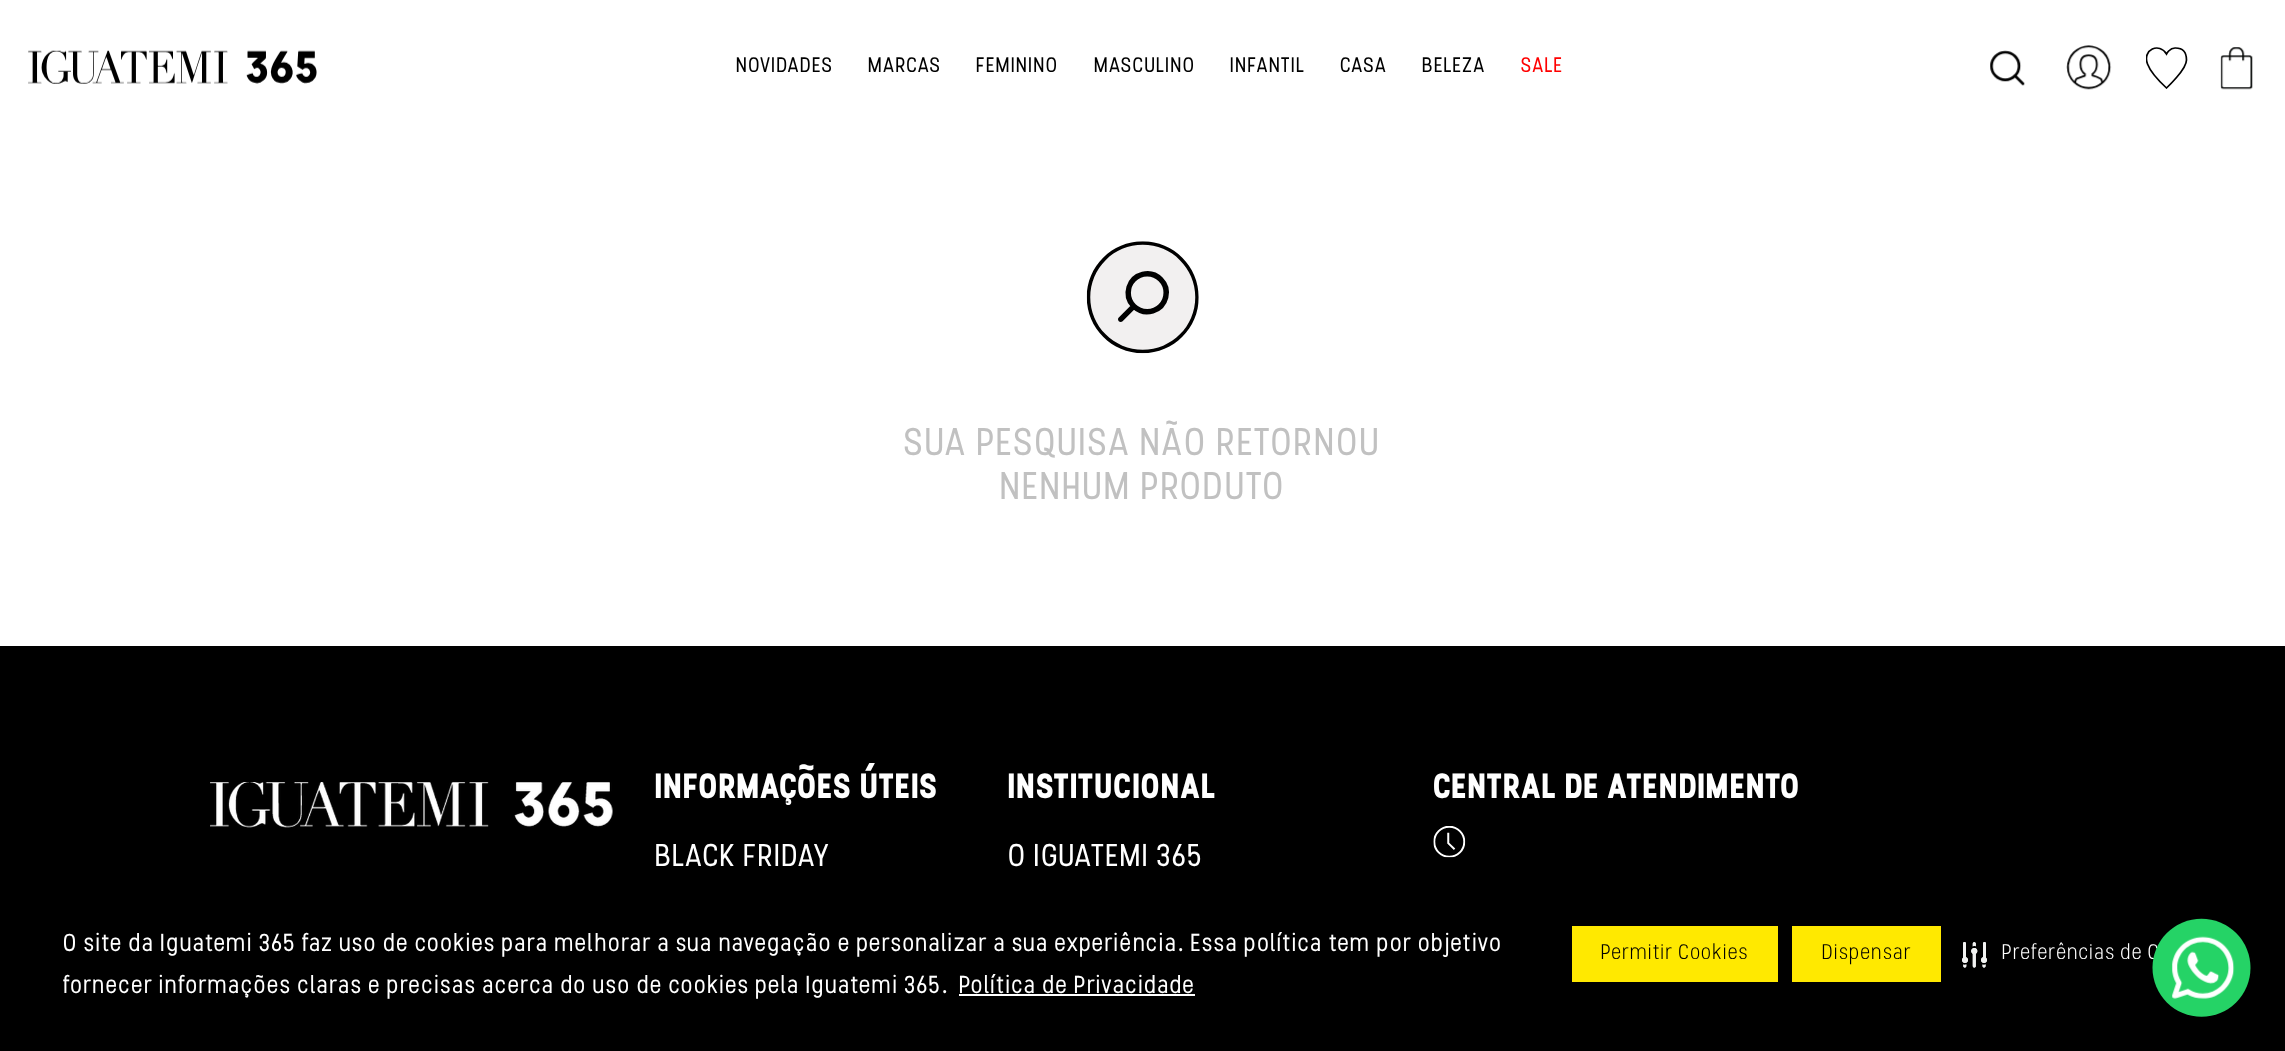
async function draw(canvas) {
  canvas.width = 2285
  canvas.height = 1051
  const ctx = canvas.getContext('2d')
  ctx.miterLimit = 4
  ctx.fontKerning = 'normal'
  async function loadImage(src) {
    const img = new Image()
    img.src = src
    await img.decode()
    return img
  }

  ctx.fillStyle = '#fff'
  ctx.fillRect(0, 0, 2285, 1051)
  ctx.drawImage(await loadImage('image0.png'), 28, 50, 289, 34)
  ctx.letterSpacing = '0.28px'
  ctx.font = '21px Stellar'
  ctx.fillStyle = '#000'
  ctx.fillText('NOVIDADES', 736, 72)
  ctx.fillText('MARCAS', 868, 72)
  ctx.fillText('FEMININO', 976, 72)
  ctx.fillText('MASCULINO', 1094, 72)
  ctx.fillText('INFANTIL', 1230, 72)
  ctx.fillText('CASA', 1340, 72)
  ctx.fillText('BELEZA', 1422, 72)
  ctx.fillStyle = '#f00'
  ctx.fillText('SALE', 1521, 72)
  ctx.drawImage(await loadImage('image1.png'), 1990, 50, 35, 36)
  ctx.drawImage(await loadImage('image2.png'), 2066, 45, 46, 45)
  ctx.save()
  ctx.beginPath()
  ctx.rect(2146, 47, 42, 42)
  ctx.clip()
  ctx.beginPath()
  ctx.moveTo(2175, 48)
  ctx.bezierCurveTo(2169.5, 48, 2166.5, 54, 2166.5, 54)
  ctx.bezierCurveTo(2159.5, 42, 2142, 49.5, 2147.5, 64)
  ctx.bezierCurveTo(2150.5, 72, 2160, 82, 2166.5, 88)
  ctx.bezierCurveTo(2166.5, 88, 2186.5, 69.5, 2186.5, 60)
  ctx.bezierCurveTo(2186.5, 52, 2183, 48, 2175.5, 48)
  ctx.closePath()
  ctx.strokeStyle = '#000'
  ctx.lineWidth = 1.7
  ctx.stroke()
  ctx.restore()
  ctx.drawImage(await loadImage('image3.png'), 2220, 47, 33, 43)
  ctx.drawImage(await loadImage('image4.png'), 1086, 241, 113, 113)
  ctx.font = '38.5px Stellar'
  ctx.fillStyle = '#c1c1c1'
  ctx.fillText('SUA PESQUISA NÃO RETORNOU', 904, 455)
  ctx.fillText('NENHUM PRODUTO', 1000, 499)
  ctx.fillStyle = '#000'
  ctx.fillRect(0, 646, 2285, 405)
  ctx.drawImage(await loadImage('image5.png'), 210, 782, 403, 46)
  ctx.letterSpacing = '0px'
  ctx.font = 'bold 35px Stellar'
  ctx.fillStyle = '#fff'
  ctx.fillText('INFORMAÇÕES ÚTEIS', 655, 798)
  ctx.font = '31.5px Stellar'
  ctx.fillText('BLACK FRIDAY', 655, 866)
  ctx.font = 'bold 35px Stellar'
  ctx.fillText('INSTITUCIONAL', 1008, 798)
  ctx.font = '31.5px Stellar'
  ctx.fillText('O IGUATEMI 365', 1008, 866)
  ctx.font = 'bold 35px Stellar'
  ctx.fillText('CENTRAL DE ATENDIMENTO', 1433, 798)
  ctx.drawImage(await loadImage('image6.png'), 1433, 826, 33, 32)
  ctx.letterSpacing = '0.28px'
  ctx.font = '300 21px Stellar'
  ctx.fillText('Preferências de C', 2002, 959)
  ctx.drawImage(await loadImage('image7.png'), 2152, 918, 99, 99)
  ctx.font = '24.5px Stellar'
  ctx.fillText('O site da Iguatemi 365 faz uso de cookies para melhorar a sua navegação e personalizar a sua experiência. Essa política tem por objetivo', 63, 951)
  ctx.fillText('fornecer informações claras e precisas acerca do uso de cookies pela Iguatemi 365.', 63, 993)
  ctx.fillText('Política de Privacidade', 959, 993)
  ctx.fillRect(959, 994, 236, 2)
  ctx.fillStyle = '#ffe900'
  ctx.fillRect(1572, 926, 206, 56)
  ctx.font = '300 21px Stellar'
  ctx.fillStyle = '#000'
  ctx.fillText('Permitir Cookies', 1601, 959)
  ctx.fillStyle = '#ffe900'
  ctx.fillRect(1792, 926, 149, 56)
  ctx.fillStyle = '#000'
  ctx.fillText('Dispensar', 1822, 959)
  ctx.drawImage(await loadImage('image8.png'), 1962, 942, 25, 26)
}

draw(document.querySelector('canvas'))
